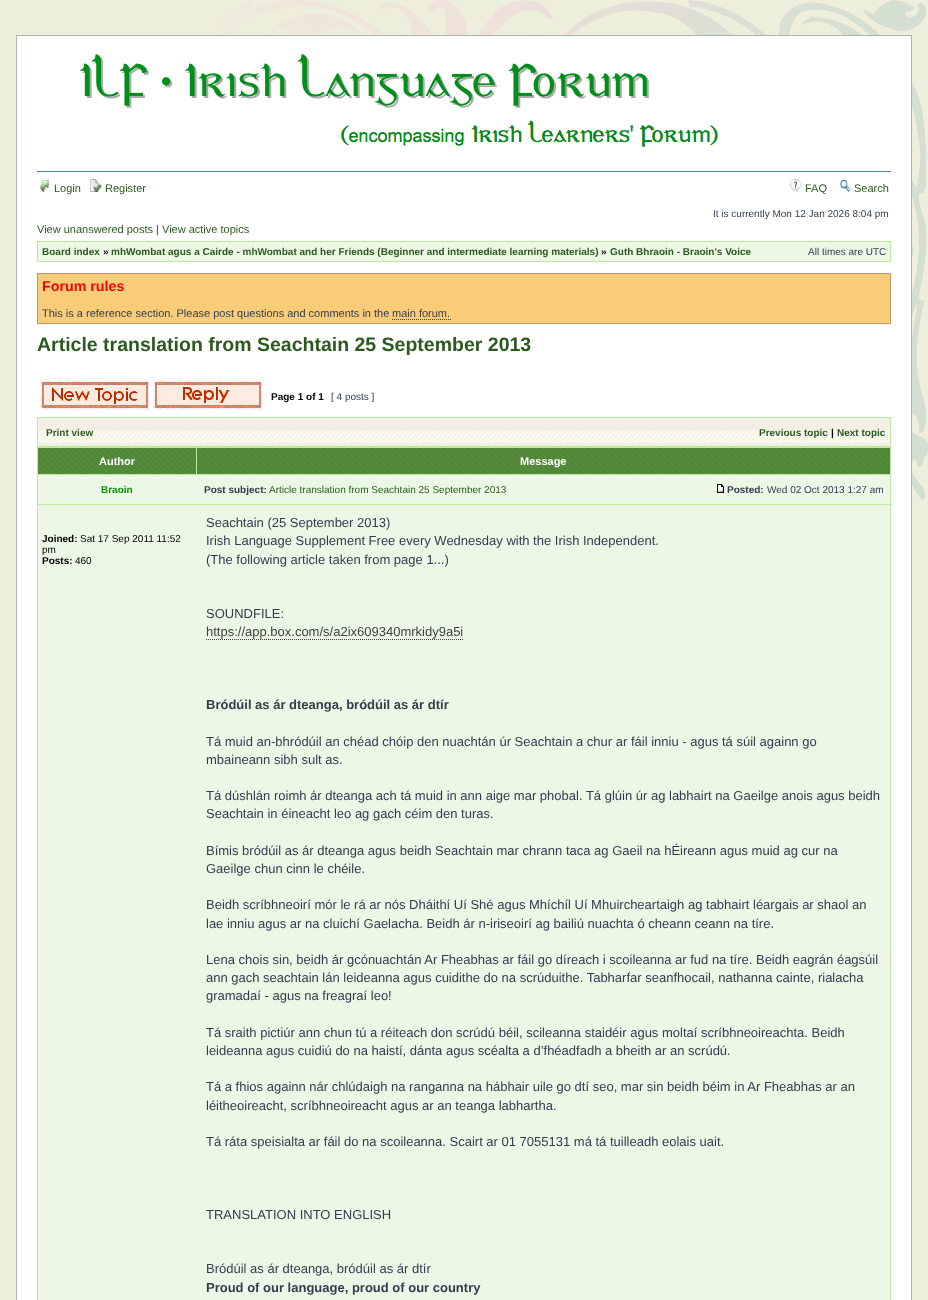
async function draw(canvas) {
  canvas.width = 928
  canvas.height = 1300
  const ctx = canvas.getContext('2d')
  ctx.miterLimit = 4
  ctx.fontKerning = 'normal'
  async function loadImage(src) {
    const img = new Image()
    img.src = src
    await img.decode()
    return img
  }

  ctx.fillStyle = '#eed'
  ctx.fillRect(0, 0, 928, 1300)
  ctx.drawImage(await loadImage('image0.png'), 222, 0, 706, 500)
  ctx.fillStyle = '#fff'
  ctx.fillRect(17, 36, 894, 1264)
  ctx.fillStyle = '#a7b9a3'
  ctx.fillRect(16, 35, 896, 1)
  ctx.fillRect(911, 35, 1, 1265)
  ctx.fillRect(16, 35, 1, 1265)
  ctx.fillStyle = '#4787a7'
  ctx.fillRect(37, 171, 854, 1)
  ctx.drawImage(await loadImage('image1.png'), 80, 54, 638, 93)
  ctx.drawImage(await loadImage('image2.png'), 40, 180, 9, 12)
  ctx.font = '11px Liberation Sans'
  ctx.fillStyle = '#2b5a1e'
  ctx.fillText('Login', 54, 192)
  ctx.drawImage(await loadImage('image3.png'), 90, 179, 12, 13)
  ctx.fillText('Register', 105, 192)
  ctx.drawImage(await loadImage('image4.png'), 790, 179, 12, 13)
  ctx.fillText('FAQ', 805, 192)
  ctx.drawImage(await loadImage('image5.png'), 839, 180, 12, 12)
  ctx.fillText('Search', 854, 192)
  ctx.font = '10px Liberation Sans'
  ctx.fillStyle = '#323d4f'
  ctx.fillText('It is currently Mon 12 Jan 2026 8:04 pm', 713, 217)
  ctx.font = '11px Liberation Sans'
  ctx.fillStyle = '#2b5a1e'
  ctx.fillText('View unanswered posts', 37, 233)
  ctx.fillStyle = '#323d4f'
  ctx.fillText('|', 156, 233)
  ctx.fillStyle = '#2b5a1e'
  ctx.fillText('View active topics', 162, 233)
  ctx.fillStyle = '#bbec9e'
  ctx.fillRect(37, 241, 854, 21)
  ctx.fillStyle = '#ecf7e5'
  ctx.fillRect(38, 242, 852, 19)
  ctx.font = 'bold 10px Liberation Sans'
  ctx.fillStyle = '#2b5a1e'
  ctx.fillText('Board index', 42, 255)
  ctx.fillStyle = '#000'
  ctx.fillText('»', 103, 255)
  ctx.fillStyle = '#2b5a1e'
  ctx.fillText('mhWombat agus a Cairde - mhWombat and her Friends (Beginner and intermediate learning materials)', 111, 255)
  ctx.fillStyle = '#000'
  ctx.fillText('»', 601, 255)
  ctx.fillStyle = '#2b5a1e'
  ctx.fillText('Guth Bhraoin - Braoin\'s Voice', 610, 255)
  ctx.font = '10px Liberation Sans'
  ctx.fillStyle = '#323d4f'
  ctx.fillText('All times are UTC', 808, 255)
  ctx.fillStyle = '#f9cc79'
  ctx.beginPath()
  ctx.rect(37.5, 273.5, 853, 50)
  ctx.fill()
  ctx.strokeStyle = '#bb9860'
  ctx.stroke()
  ctx.font = 'bold 14.25px Liberation Sans'
  ctx.fillStyle = '#f00'
  ctx.fillText('Forum rules', 42, 291)
  ctx.font = '11px Liberation Sans'
  ctx.fillStyle = '#323d4f'
  ctx.fillText('This is a reference section. Please post questions and comments in the', 42, 317)
  ctx.fillStyle = '#3f403c'
  ctx.fillText('main forum.', 392, 317)
  ctx.beginPath()
  ctx.moveTo(392, 319.5)
  ctx.lineTo(451, 319.5)
  ctx.strokeStyle = '#3f403c'
  ctx.setLineDash([1, 1])
  ctx.stroke()
  ctx.font = 'bold 19.5px Liberation Sans'
  ctx.fillStyle = '#2b5a1e'
  ctx.fillText('Article translation from Seachtain 25 September 2013', 37, 351)
  ctx.drawImage(await loadImage('image6.png'), 40, 378, 110, 34)
  ctx.drawImage(await loadImage('image7.png'), 153, 378, 110, 34)
  ctx.font = 'bold 10px Liberation Sans'
  ctx.fillStyle = '#000'
  ctx.fillText('Page 1 of 1', 271, 400)
  ctx.font = '10px Liberation Sans'
  ctx.fillStyle = '#323d4f'
  ctx.fillText('[ 4 posts ]', 331, 400)
  ctx.fillStyle = '#bbec9e'
  ctx.fillRect(37, 417, 854, 883)
  ctx.drawImage(await loadImage('image8.png'), 38, 418, 852, 28)
  ctx.font = 'bold 10px Liberation Sans'
  ctx.fillStyle = '#2b5a1e'
  ctx.fillText('Print view', 46, 436)
  ctx.fillText('Previous topic', 759, 436)
  ctx.fillStyle = '#000'
  ctx.fillText('|', 831, 436)
  ctx.fillStyle = '#2b5a1e'
  ctx.fillText('Next topic', 837, 436)
  ctx.drawImage(await loadImage('image9.png'), 38, 448, 158, 26)
  ctx.font = 'bold 11px Liberation Sans'
  ctx.fillStyle = '#fff'
  ctx.fillText('Author', 99, 465)
  ctx.drawImage(await loadImage('image10.png'), 197, 448, 693, 26)
  ctx.fillText('Message', 520, 465)
  ctx.fillStyle = '#ecf7e5'
  ctx.fillRect(38, 475, 852, 29)
  ctx.font = 'bold 10px Liberation Sans'
  ctx.fillStyle = '#090'
  ctx.fillText('Braoin', 101, 493)
  ctx.fillStyle = '#323d4f'
  ctx.fillText('Post subject:', 204, 493)
  ctx.font = '10px Liberation Sans'
  ctx.fillStyle = '#2b5a1e'
  ctx.fillText('Article translation from Seachtain 25 September 2013', 269, 493)
  ctx.drawImage(await loadImage('image11.png'), 717, 484, 7, 9)
  ctx.font = 'bold 10px Liberation Sans'
  ctx.fillStyle = '#323d4f'
  ctx.fillText('Posted:', 727, 493)
  ctx.font = '10px Liberation Sans'
  ctx.fillText('Wed 02 Oct 2013 1:27 am', 767, 493)
  ctx.fillStyle = '#ecf7e5'
  ctx.fillRect(38, 505, 852, 795)
  ctx.font = 'bold 10px Liberation Sans'
  ctx.fillStyle = '#000'
  ctx.fillText('Joined:', 42, 542)
  ctx.font = '10px Liberation Sans'
  ctx.fillText('Sat 17 Sep 2011 11:52', 80, 542)
  ctx.fillText('pm', 42, 553)
  ctx.font = 'bold 10px Liberation Sans'
  ctx.fillText('Posts:', 42, 564)
  ctx.font = '10px Liberation Sans'
  ctx.fillText('460', 75, 564)
  ctx.font = '13px Liberation Sans'
  ctx.fillStyle = '#323d4f'
  ctx.fillText('Seachtain (25 September 2013)', 206, 527)
  ctx.fillText('Irish Language Supplement Free every Wednesday with the Irish Independent.', 206, 545)
  ctx.fillText('(The following article taken from page 1...)', 206, 564)
  ctx.fillText('SOUNDFILE:', 206, 618)
  ctx.fillStyle = '#3f403c'
  ctx.fillText('https://app.box.com/s/a2ix609340mrkidy9a5i', 206, 636)
  ctx.beginPath()
  ctx.moveTo(206, 639.5)
  ctx.lineTo(463, 639.5)
  ctx.stroke()
  ctx.font = 'bold 13px Liberation Sans'
  ctx.fillStyle = '#323d4f'
  ctx.fillText('Bródúil as ár dteanga, bródúil as ár dtír', 206, 709)
  ctx.font = '13px Liberation Sans'
  ctx.fillText('Tá muid an-bhródúil an chéad chóip den nuachtán úr Seachtain a chur ar fáil inniu - agus tá súil againn go', 206, 746)
  ctx.fillText('mbaineann sibh sult as.', 206, 764)
  ctx.fillText('Tá dúshlán roimh ár dteanga ach tá muid in ann aige mar phobal. Tá glúin úr ag labhairt na Gaeilge anois agus beidh', 206, 800)
  ctx.fillText('Seachtain in éineacht leo ag gach céim den turas.', 206, 818)
  ctx.fillText('Bímis bródúil as ár dteanga agus beidh Seachtain mar chrann taca ag Gaeil na hÉireann agus muid ag cur na', 206, 855)
  ctx.fillText('Gaeilge chun cinn le chéile.', 206, 873)
  ctx.fillText('Beidh scríbhneoirí mór le rá ar nós Dháithí Uí Shé agus Mhíchíl Uí Mhuircheartaigh ag tabhairt léargais ar shaol an', 206, 909)
  ctx.fillText('lae inniu agus ar na cluichí Gaelacha. Beidh ár n-iriseoirí ag bailiú nuachta ó cheann ceann na tíre.', 206, 928)
  ctx.fillText('Lena chois sin, beidh ár gcónuachtán Ar Fheabhas ar fáil go díreach i scoileanna ar fud na tíre. Beidh eagrán éagsúil', 206, 964)
  ctx.fillText('ann gach seachtain lán leideanna agus cuidithe do na scrúduithe. Tabharfar seanfhocail, nathanna cainte, rialacha', 206, 982)
  ctx.fillText('gramadaí - agus na freagraí leo!', 206, 1000)
  ctx.fillText('Tá sraith pictiúr ann chun tú a réiteach don scrúdú béil, scileanna staidéir agus moltaí scríbhneoireachta. Beidh', 206, 1037)
  ctx.fillText('leideanna agus cuidiú do na haistí, dánta agus scéalta a d’fhéadfadh a bheith ar an scrúdú.', 206, 1055)
  ctx.fillText('Tá a fhios againn nár chlúdaigh na ranganna na hábhair uile go dtí seo, mar sin beidh béim in Ar Fheabhas ar an', 206, 1091)
  ctx.fillText('léitheoireacht, scríbhneoireacht agus ar an teanga labhartha.', 206, 1110)
  ctx.fillText('Tá ráta speisialta ar fáil do na scoileanna. Scairt ar 01 7055131 má tá tuilleadh eolais uait.', 206, 1146)
  ctx.fillText('TRANSLATION INTO ENGLISH', 206, 1219)
  ctx.fillText('Bródúil as ár dteanga, bródúil as ár dtír', 206, 1273)
  ctx.font = 'bold 13px Liberation Sans'
  ctx.fillText('Proud of our language, proud of our country', 206, 1292)
}

draw(document.querySelector('canvas'))
